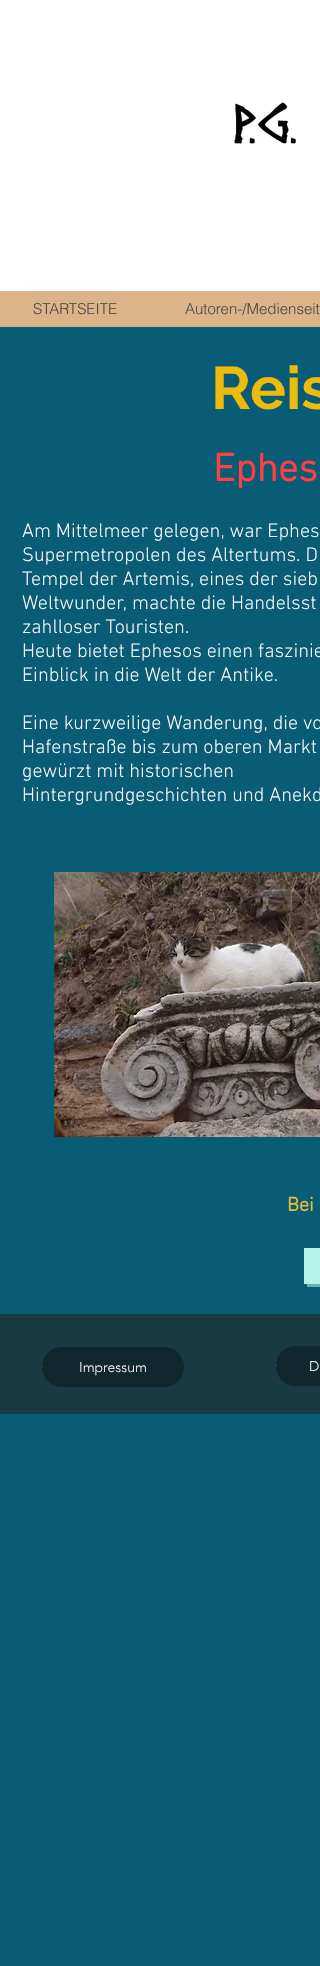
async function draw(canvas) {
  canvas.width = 320
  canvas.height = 1966
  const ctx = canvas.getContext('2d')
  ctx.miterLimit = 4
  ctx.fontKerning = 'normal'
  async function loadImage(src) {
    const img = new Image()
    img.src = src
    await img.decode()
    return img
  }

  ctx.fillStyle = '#095c75'
  ctx.fillRect(0, 0, 320, 1966)
  ctx.fillStyle = '#fff'
  ctx.fillRect(0, 0, 320, 291)
  ctx.drawImage(await loadImage('image0.png'), 232, 102, 64, 42)
  ctx.fillStyle = '#dbb488'
  ctx.fillRect(0, 291, 320, 36)
  ctx.font = '300 15px helvetica'
  ctx.fillStyle = '#444'
  ctx.fillText('STARTSEITE', 33, 314)
  ctx.fillText('Autoren-/Medienseit', 185, 314)
  ctx.font = 'bold 60px Raleway'
  ctx.fillStyle = '#edbb0c'
  ctx.fillText('Reis', 211, 409)
  ctx.font = 'bold 40px "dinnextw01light"'
  ctx.fillStyle = '#ff4040'
  ctx.fillText('Ephes', 213, 481)
  ctx.font = '300 20px "dinnextw01light"'
  ctx.fillStyle = '#fff'
  ctx.fillText('Am Mittelmeer gelegen, war Ephes', 22, 537)
  ctx.fillText('Supermetropolen des Altertums. D', 22, 561)
  ctx.fillText('Tempel der Artemis, eines der sieb', 22, 585)
  ctx.fillText('Weltwunder, machte die Handelsst', 22, 609)
  ctx.fillText('zahlloser Touristen.', 22, 633)
  ctx.fillText('Heute bietet Ephesos einen faszinie', 22, 657)
  ctx.fillText('Einblick in die Welt der Antike.', 22, 681)
  ctx.fillText('Eine kurzweilige Wanderung, die vo', 22, 729)
  ctx.fillText('Hafenstraße bis zum oberen Markt', 22, 753)
  ctx.fillText('gewürzt mit historischen', 22, 777)
  ctx.fillText('Hintergrundgeschichten und Anekd', 22, 801)
  ctx.drawImage(await loadImage('image1.png'), 54, 872, 266, 265)
  ctx.font = 'bold 20px "dinnextw01light"'
  ctx.fillStyle = '#eac02f'
  ctx.fillText('Bei', 287, 1211)
  ctx.fillStyle = '#65b5a6'
  ctx.beginPath()
  ctx.moveTo(307, 1284)
  ctx.lineTo(307, 1287)
  ctx.lineTo(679, 1287)
  ctx.lineTo(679, 1251)
  ctx.lineTo(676, 1251)
  ctx.lineTo(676, 1284)
  ctx.closePath()
  ctx.fill()
  ctx.fillStyle = '#b5f3e8'
  ctx.fillRect(304, 1248, 16, 36)
  ctx.fillStyle = '#193943'
  ctx.fillRect(0, 1314, 320, 100)
  ctx.fillStyle = '#183640'
  ctx.beginPath()
  ctx.roundRect(42, 1347, 142, 40, 20)
  ctx.fill()
  ctx.drawImage(await loadImage('image2.png'), 42, 1347, 142, 40)
  ctx.font = '300 14px "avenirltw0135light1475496"'
  ctx.fillStyle = '#fff'
  ctx.fillText('Impressum', 79, 1372)
  ctx.fillStyle = '#183640'
  ctx.beginPath()
  ctx.roundRect(276, 1346, 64, 40, 20)
  ctx.fill()
  ctx.drawImage(await loadImage('image3.png'), 276, 1346, 44, 40)
  ctx.fillStyle = '#fff'
  ctx.fillText('D', 309, 1371)
}

draw(document.querySelector('canvas'))
